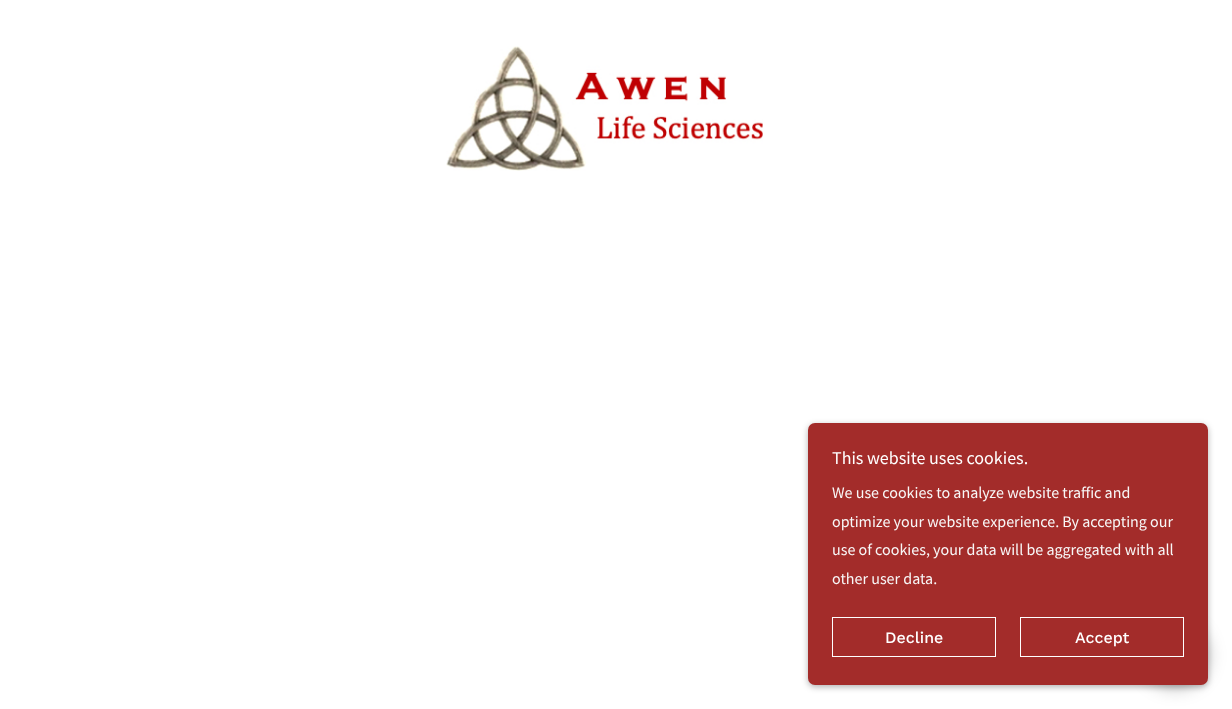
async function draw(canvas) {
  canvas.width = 1232
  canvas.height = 709
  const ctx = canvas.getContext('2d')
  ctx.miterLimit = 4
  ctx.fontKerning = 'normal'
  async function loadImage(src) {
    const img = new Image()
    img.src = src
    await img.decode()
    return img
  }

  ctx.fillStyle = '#fff'
  ctx.fillRect(0, 0, 1232, 709)
  ctx.drawImage(await loadImage('image0.png'), 446, 46, 317, 125)
  ctx.fillStyle = '#0000004d'
  ctx.filter = 'blur(3px)'
  ctx.beginPath()
  ctx.roundRect(808, 425, 400, 262, 7)
  ctx.fill()
  ctx.filter = 'none'
  ctx.fillStyle = '#00000040'
  ctx.filter = 'blur(9px)'
  ctx.beginPath()
  ctx.roundRect(1143, 623, 65, 65, 32.5)
  ctx.fill()
  ctx.filter = 'none'
  ctx.fillStyle = '#a32c2a'
  ctx.beginPath()
  ctx.roundRect(808, 423, 400, 262, 7)
  ctx.fill()
  ctx.font = '18px Source Sans Pro'
  ctx.fillStyle = '#fff'
  ctx.fillText('This website uses cookies.', 832, 464)
  ctx.font = '16px Source Sans Pro'
  ctx.fillStyle = '#f8f7f7'
  ctx.fillText('We use cookies to analyze website traffic and', 832, 498)
  ctx.fillText('optimize your website experience. By accepting our', 832, 527)
  ctx.fillText('use of cookies, your data will be aggregated with all', 832, 555)
  ctx.fillText('other user data.', 832, 584)
  ctx.strokeStyle = '#fff'
  ctx.strokeRect(832.5, 617.5, 163, 39)
  ctx.font = '500 16px Work Sans'
  ctx.fillStyle = '#fff'
  ctx.fillText('Decline', 885, 643)
  ctx.strokeRect(1020.5, 617.5, 163, 39)
  ctx.fillText('Accept', 1075, 643)
}

draw(document.querySelector('canvas'))
